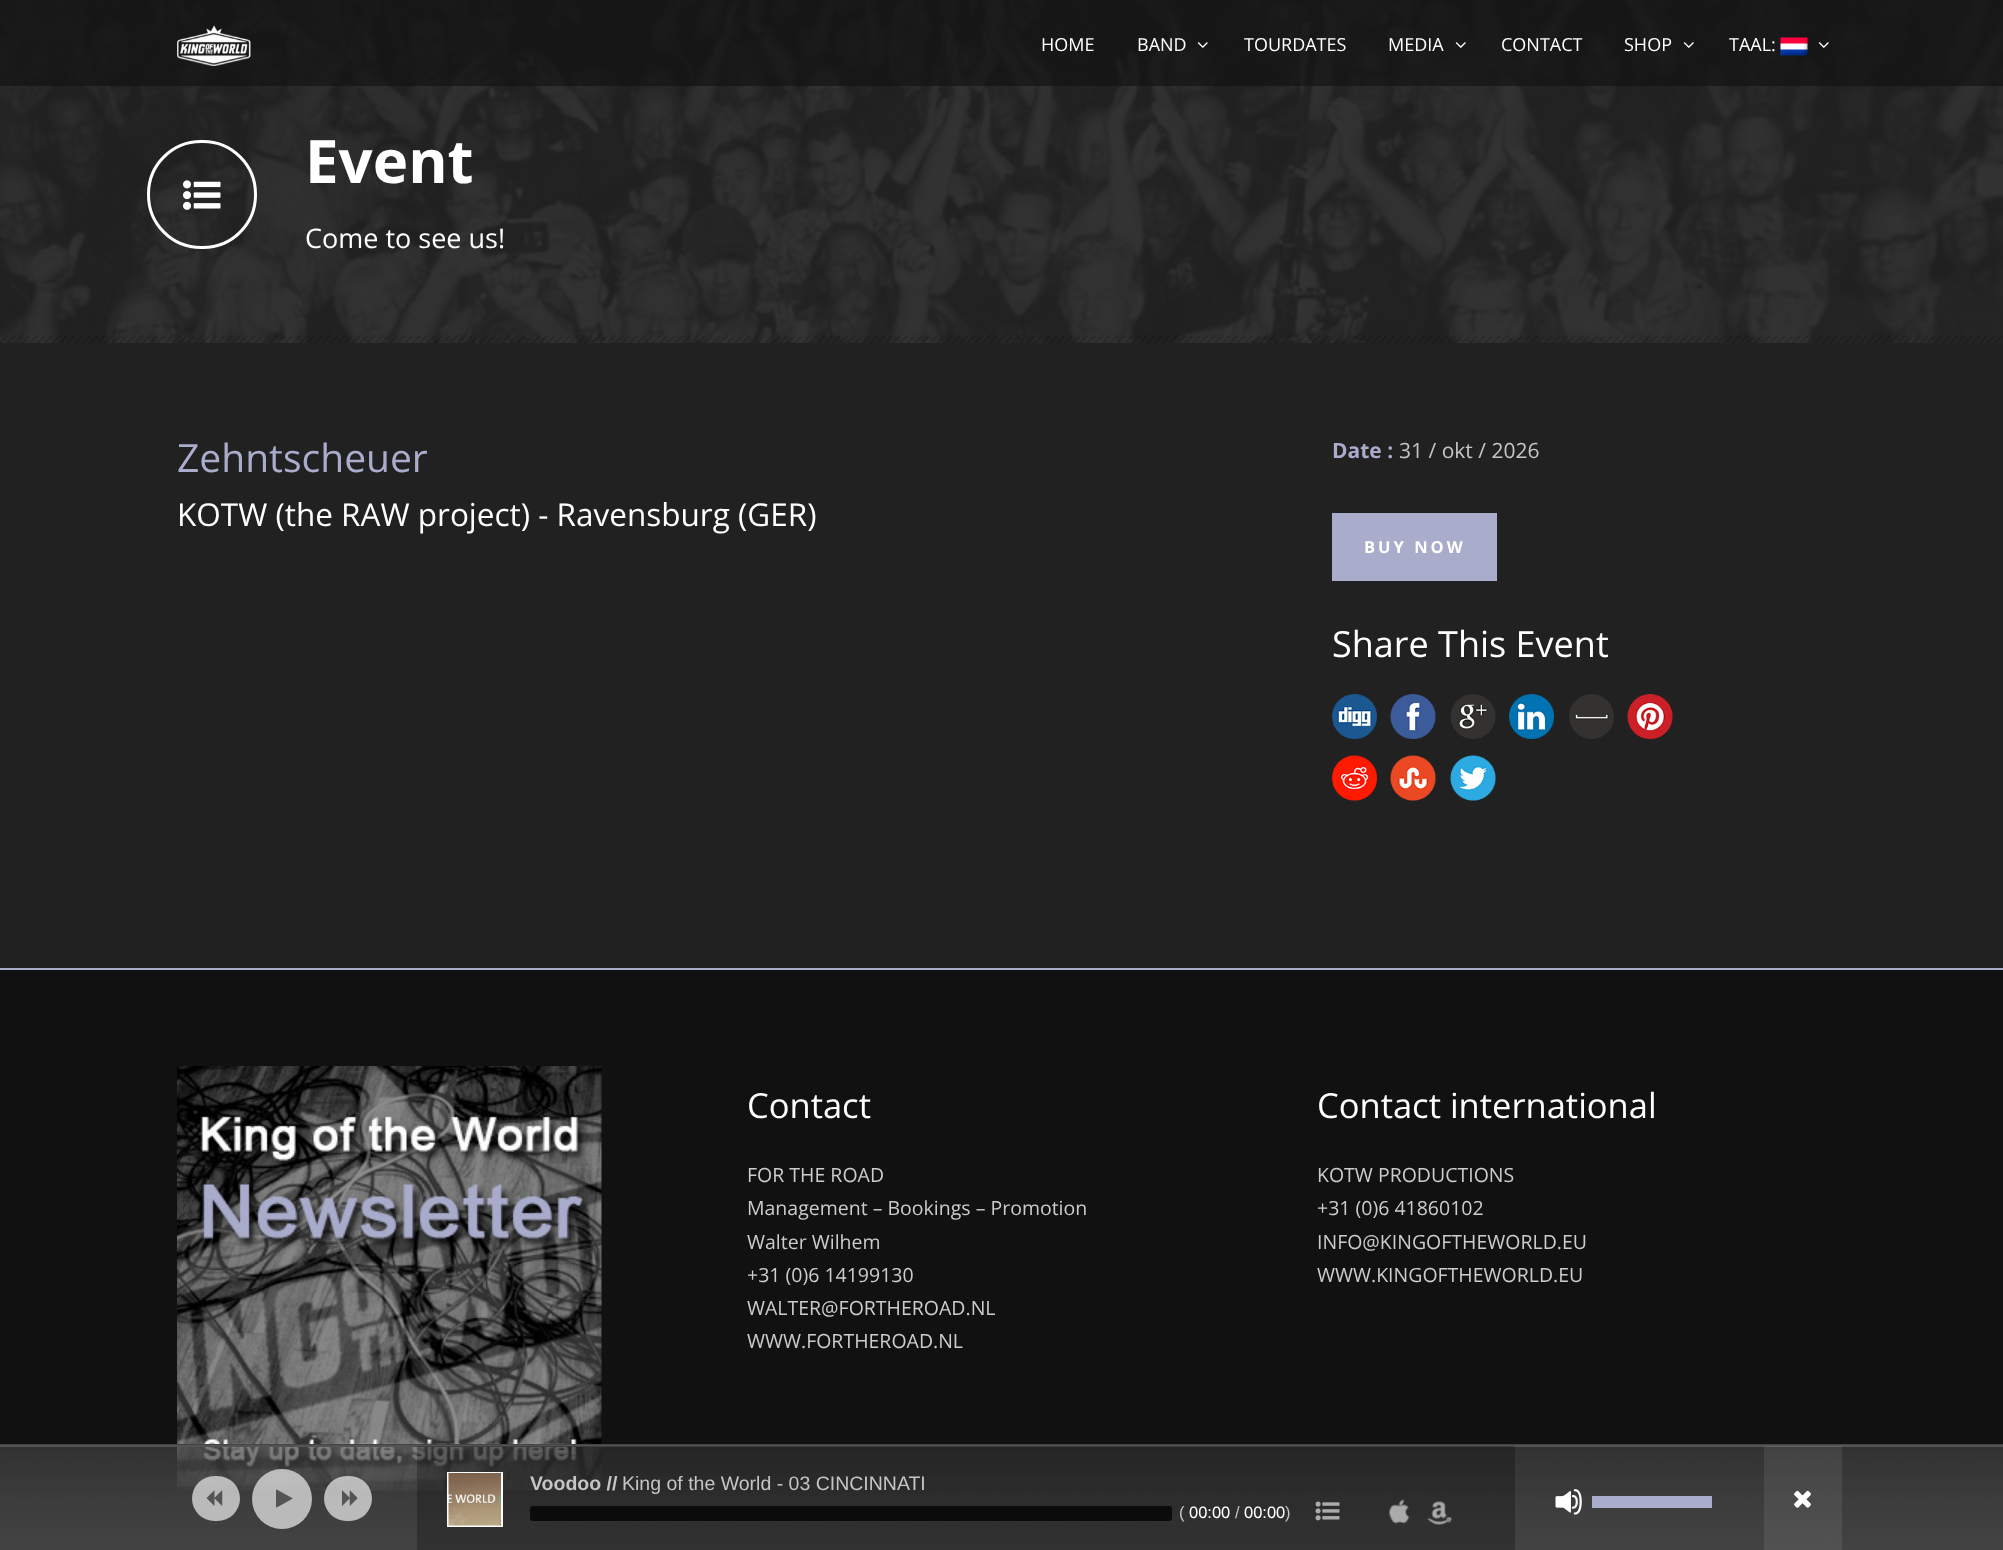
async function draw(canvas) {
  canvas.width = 2003
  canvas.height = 1550
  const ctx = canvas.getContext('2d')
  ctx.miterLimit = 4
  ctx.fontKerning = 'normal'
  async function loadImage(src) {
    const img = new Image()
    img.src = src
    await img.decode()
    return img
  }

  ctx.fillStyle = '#212121'
  ctx.fillRect(0, 0, 2003, 1550)
  ctx.drawImage(await loadImage('image6.png'), 0, 0, 2003, 343)
  ctx.fillStyle = '#111111a3'
  ctx.fillRect(0, 0, 2003, 86)
  ctx.drawImage(await loadImage('image0.png'), 177, 25, 74, 41)
  ctx.font = '18px Open Sans'
  ctx.fillStyle = '#fff'
  ctx.fillText('HOME', 1041, 51)
  ctx.fillText('BAND', 1137, 51)
  ctx.drawImage(await loadImage('image1.png'), 1197, 42, 11, 6)
  ctx.fillText('TOURDATES', 1244, 51)
  ctx.fillText('MEDIA', 1388, 51)
  ctx.drawImage(await loadImage('image2.png'), 1455, 42, 11, 6)
  ctx.fillText('CONTACT', 1501, 51)
  ctx.fillText('SHOP', 1624, 51)
  ctx.drawImage(await loadImage('image3.png'), 1683, 42, 11, 6)
  ctx.fillText('TAAL:', 1729, 51)
  ctx.drawImage(await loadImage('image4.png'), 1780, 37, 28, 19)
  ctx.drawImage(await loadImage('image5.png'), 1818, 42, 11, 6)
  ctx.beginPath()
  ctx.roundRect(148.5, 141.5, 107, 106, 52.5)
  ctx.strokeStyle = '#fff'
  ctx.lineWidth = 3
  ctx.stroke()
  ctx.drawImage(await loadImage('image7.png'), 183, 180, 38, 30)
  ctx.font = 'bold 60px Open Sans'
  ctx.fillText('Event', 305, 183)
  ctx.font = '27px Open Sans'
  ctx.fillText('Come to see us!', 305, 248)
  ctx.drawImage(await loadImage('image8.png'), 0, 335, 2003, 8)
  ctx.font = '39px Open Sans'
  ctx.fillStyle = '#a9accb'
  ctx.fillText('Zehntscheuer', 177, 472)
  ctx.font = '31.5px Open Sans'
  ctx.fillStyle = '#fff'
  ctx.fillText('KOTW (the RAW project) - Ravensburg (GER)', 177, 526)
  ctx.font = 'bold 21px Open Sans'
  ctx.fillStyle = '#a9accb'
  ctx.fillText('Date :', 1332, 458)
  ctx.font = '21px Open Sans'
  ctx.fillStyle = '#c5c5c5'
  ctx.fillText('31 / okt / 2026', 1399, 458)
  ctx.fillStyle = '#a9accb'
  ctx.fillRect(1332, 513, 165, 68)
  ctx.letterSpacing = '3px'
  ctx.font = 'bold 16.5px Open Sans'
  ctx.fillStyle = '#fff'
  ctx.fillText('BUY NOW', 1364, 553)
  ctx.letterSpacing = '0px'
  ctx.font = '36px Open Sans'
  ctx.fillText('Share This Event', 1332, 657)
  ctx.drawImage(await loadImage('image9.png'), 1332, 694, 45, 45)
  ctx.drawImage(await loadImage('image10.png'), 1390, 694, 46, 45)
  ctx.drawImage(await loadImage('image11.png'), 1450, 694, 46, 45)
  ctx.drawImage(await loadImage('image12.png'), 1509, 694, 45, 45)
  ctx.drawImage(await loadImage('image13.png'), 1569, 694, 45, 45)
  ctx.drawImage(await loadImage('image14.png'), 1627, 694, 46, 45)
  ctx.drawImage(await loadImage('image15.png'), 1332, 755, 45, 46)
  ctx.drawImage(await loadImage('image16.png'), 1390, 755, 46, 46)
  ctx.drawImage(await loadImage('image17.png'), 1450, 755, 46, 46)
  ctx.fillStyle = '#111'
  ctx.fillRect(0, 970, 2003, 579)
  ctx.fillStyle = '#a9accb'
  ctx.fillRect(0, 968, 2003, 2)
  ctx.drawImage(await loadImage('image18.png'), 177, 1066, 425, 425)
  ctx.font = '34.5px Open Sans'
  ctx.fillStyle = '#fff'
  ctx.fillText('Contact', 747, 1118)
  ctx.font = '19.5px Open Sans'
  ctx.fillStyle = '#ccc'
  ctx.fillText('FOR THE ROAD', 747, 1182)
  ctx.fillText('Management – Bookings – Promotion', 747, 1215)
  ctx.fillText('Walter Wilhem', 747, 1249)
  ctx.fillText('+31 (0)6 14199130', 747, 1282)
  ctx.fillText('WALTER@FORTHEROAD.NL', 747, 1315)
  ctx.fillText('WWW.FORTHEROAD.NL', 747, 1348)
  ctx.font = '34.5px Open Sans'
  ctx.fillStyle = '#fff'
  ctx.fillText('Contact international', 1317, 1118)
  ctx.font = '19.5px Open Sans'
  ctx.fillStyle = '#ccc'
  ctx.fillText('KOTW PRODUCTIONS', 1317, 1182)
  ctx.fillText('+31 (0)6 41860102', 1317, 1215)
  ctx.fillText('INFO@KINGOFTHEWORLD.EU', 1317, 1249)
  ctx.fillText('WWW.KINGOFTHEWORLD.EU', 1317, 1282)
  ctx.drawImage(await loadImage('image19.png'), 0, 1444, 2003, 106)
  ctx.fillStyle = '#535353'
  ctx.fillRect(0, 1445, 2003, 2)
  ctx.fillStyle = '#dadadacc'
  ctx.beginPath()
  ctx.roundRect(192, 1476, 48, 45, 22.5)
  ctx.fill()
  ctx.drawImage(await loadImage('image20.png'), 206, 1490, 17, 16)
  ctx.beginPath()
  ctx.arc(282, 1499, 30, 0, 2 * Math.PI)
  ctx.fill()
  ctx.drawImage(await loadImage('image21.png'), 276, 1489, 17, 19)
  ctx.beginPath()
  ctx.roundRect(324, 1476, 48, 45, 22.5)
  ctx.fill()
  ctx.drawImage(await loadImage('image22.png'), 342, 1490, 16, 16)
  ctx.fillStyle = '#00000040'
  ctx.fillRect(417, 1446, 876, 104)
  ctx.lineWidth = 2
  ctx.strokeRect(448, 1473, 54, 53)
  ctx.drawImage(await loadImage('image23.png'), 448, 1473, 53, 53)
  ctx.font = 'bold 19.5px Liberation Sans'
  ctx.fillStyle = '#c5c5c5'
  ctx.fillText('Voodoo //', 530, 1490)
  ctx.font = '19.5px Liberation Sans'
  ctx.fillText('King of the World - 03 CINCINNATI', 622, 1490)
  ctx.fillStyle = '#0b0b0b'
  ctx.beginPath()
  ctx.roundRect(530, 1506, 642, 15, 3)
  ctx.fill()
  ctx.font = '16.5px Liberation Sans'
  ctx.fillStyle = '#c5c5c5'
  ctx.fillText('(', 1179, 1518)
  ctx.fillStyle = '#fff'
  ctx.fillText('00:00', 1189, 1518)
  ctx.fillStyle = '#c5c5c5'
  ctx.fillText('/', 1235, 1518)
  ctx.fillStyle = '#fff'
  ctx.fillText('00:00', 1244, 1518)
  ctx.fillStyle = '#c5c5c5'
  ctx.fillText(')', 1285, 1518)
  ctx.fillStyle = '#00000040'
  ctx.fillRect(1293, 1446, 222, 104)
  ctx.drawImage(await loadImage('image24.png'), 1315, 1501, 25, 20)
  ctx.drawImage(await loadImage('image25.png'), 1389, 1499, 21, 25)
  ctx.drawImage(await loadImage('image26.png'), 1427, 1501, 25, 24)
  ctx.drawImage(await loadImage('image27.png'), 1555, 1489, 27, 26)
  ctx.fillStyle = '#a9accb'
  ctx.fillRect(1592, 1496, 120, 12)
  ctx.fillStyle = '#d8d8d81a'
  ctx.fillRect(1764, 1446, 78, 104)
  ctx.drawImage(await loadImage('image28.png'), 1794, 1490, 17, 18)
}

draw(document.querySelector('canvas'))
